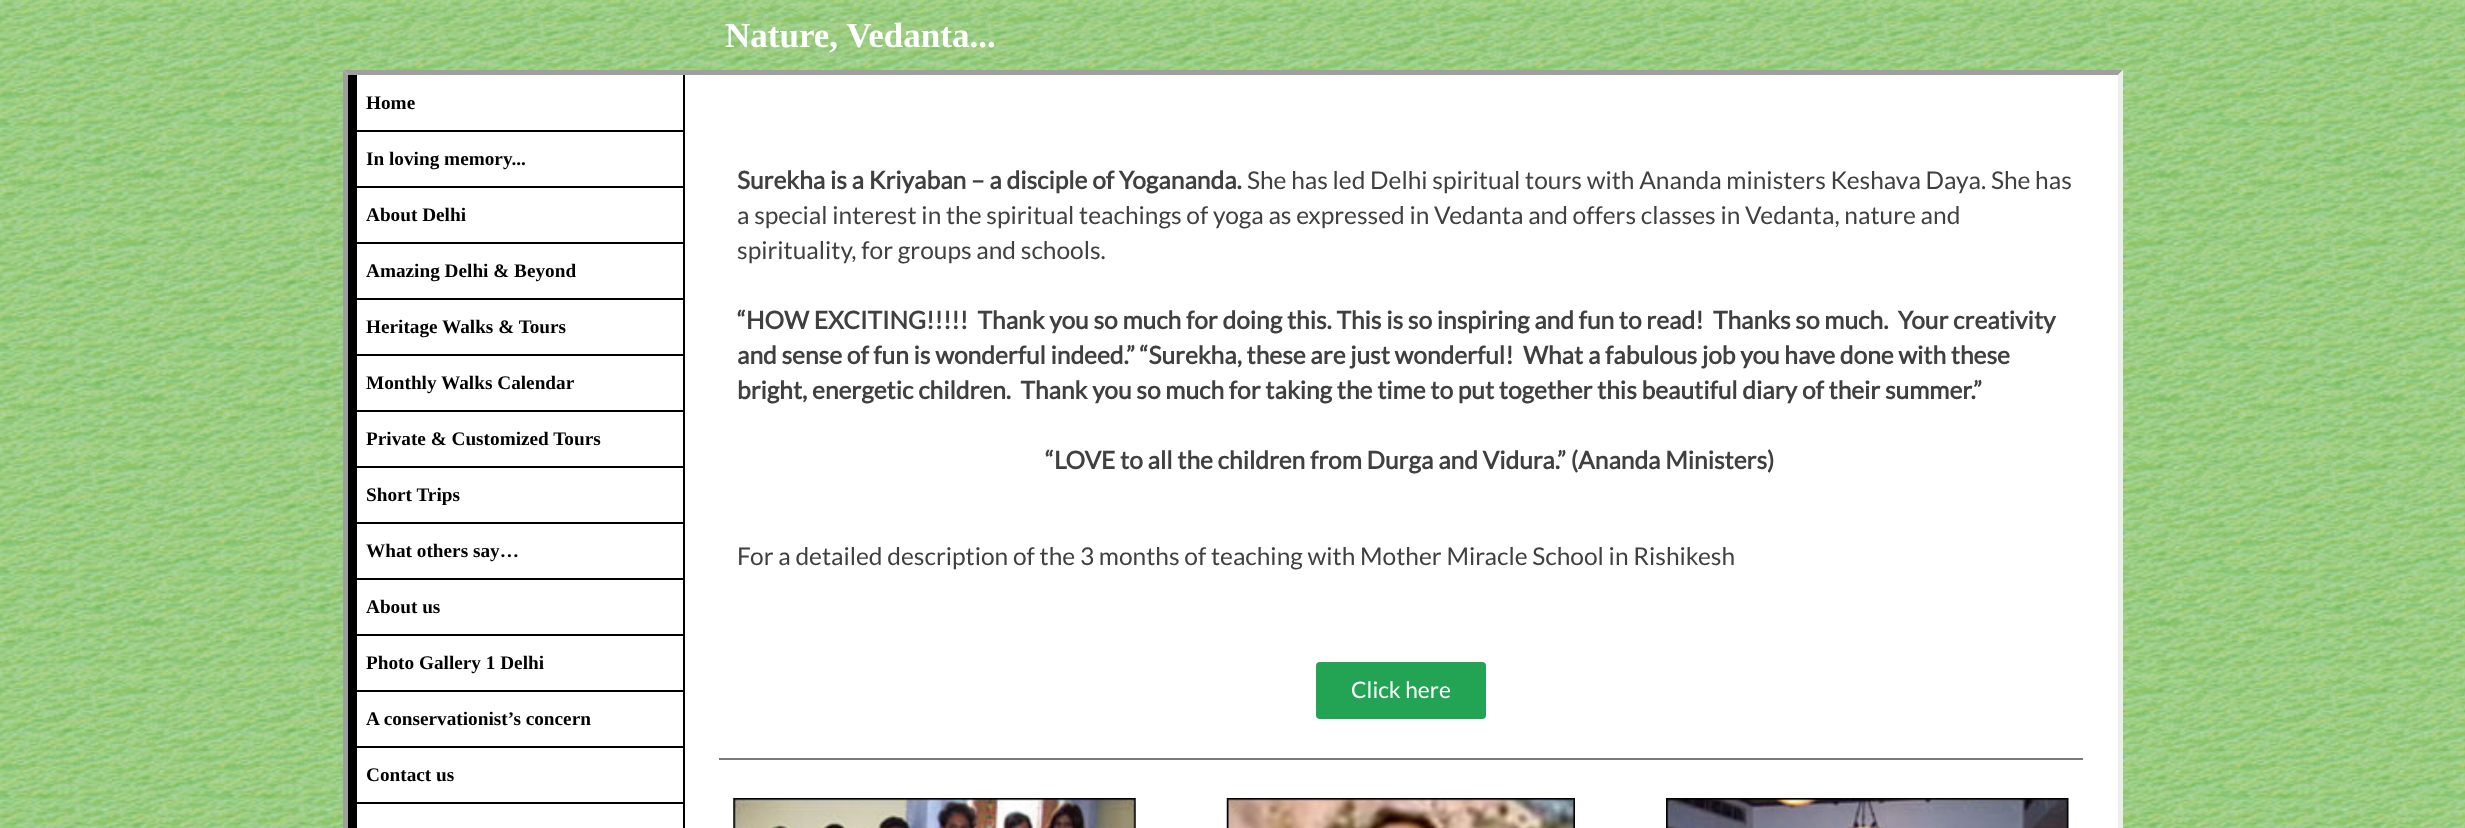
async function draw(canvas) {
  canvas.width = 2465
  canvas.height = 828
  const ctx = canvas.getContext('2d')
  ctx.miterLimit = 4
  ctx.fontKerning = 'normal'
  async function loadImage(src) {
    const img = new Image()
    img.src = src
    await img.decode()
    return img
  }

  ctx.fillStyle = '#fff'
  ctx.fillRect(0, 0, 2465, 828)
  ctx.drawImage(await loadImage('image0.png'), 0, 0, 2465, 828)
  ctx.font = 'bold 35px Liberation Serif'
  ctx.fillText('Nature, Vedanta...', 725, 47)
  ctx.fillRect(343, 70, 1780, 758)
  ctx.fillStyle = '#9f9f9f'
  ctx.beginPath()
  ctx.moveTo(343, 70)
  ctx.lineTo(2123, 70)
  ctx.lineTo(2118, 75)
  ctx.lineTo(348, 75)
  ctx.closePath()
  ctx.fill()
  ctx.fillStyle = '#eee'
  ctx.beginPath()
  ctx.moveTo(2123, 70)
  ctx.lineTo(2123, 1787)
  ctx.lineTo(2118, 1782)
  ctx.lineTo(2118, 75)
  ctx.closePath()
  ctx.fill()
  ctx.fillStyle = '#9f9f9f'
  ctx.beginPath()
  ctx.moveTo(343, 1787)
  ctx.lineTo(343, 70)
  ctx.lineTo(348, 75)
  ctx.lineTo(348, 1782)
  ctx.closePath()
  ctx.fill()
  ctx.fillStyle = '#000'
  ctx.fillRect(683, 75, 2, 753)
  ctx.fillRect(348, 75, 9, 753)
  ctx.fillRect(357, 130, 326, 2)
  ctx.font = 'bold 19.25px Liberation Serif'
  ctx.fillText('Home', 366, 109)
  ctx.fillRect(357, 186, 326, 2)
  ctx.fillText('In loving memory...', 366, 165)
  ctx.fillRect(357, 242, 326, 2)
  ctx.fillText('About Delhi', 366, 221)
  ctx.fillRect(357, 298, 326, 2)
  ctx.fillText('Amazing Delhi & Beyond', 366, 277)
  ctx.fillRect(357, 354, 326, 2)
  ctx.fillText('Heritage', 366, 333)
  ctx.fillText('Walks & Tours', 442, 333)
  ctx.fillRect(357, 410, 326, 2)
  ctx.fillText('Monthly Walks Calendar', 366, 389)
  ctx.fillRect(357, 466, 326, 2)
  ctx.fillText('Private & Customized Tours', 366, 445)
  ctx.fillRect(357, 522, 326, 2)
  ctx.fillText('Short Trips', 366, 501)
  ctx.fillRect(357, 578, 326, 2)
  ctx.fillText('What others say…', 366, 557)
  ctx.fillRect(357, 634, 326, 2)
  ctx.fillText('About us', 366, 613)
  ctx.fillRect(357, 690, 326, 2)
  ctx.fillText('Photo Gallery 1 Delhi', 366, 669)
  ctx.fillRect(357, 746, 326, 2)
  ctx.fillText('A conservationist’s concern', 366, 725)
  ctx.fillRect(357, 802, 326, 2)
  ctx.fillText('Contact us', 366, 781)
  ctx.font = 'bold 24.5px Lato'
  ctx.fillStyle = '#404040'
  ctx.fillText('Surekha is a Kriyaban – a disciple of Yogananda.', 737, 189)
  ctx.font = '24.5px Lato'
  ctx.fillText('She has led Delhi spiritual tours with Ananda ministers Keshava Daya. She has', 1247, 189)
  ctx.fillText('a special interest in the spiritual teachings of yoga as expressed in Vedanta and offers classes in Vedanta, nature and', 737, 224)
  ctx.fillText('spirituality, for groups and schools.', 737, 259)
  ctx.font = 'bold 24.5px Lato'
  ctx.fillText('“HOW EXCITING!!!!!  Thank you so much for doing this. This is so inspiring and fun to read!  Thanks so much.  Your creativity', 737, 329)
  ctx.fillText('and sense of fun is wonderful indeed.” “Surekha, these are just wonderful!  What a fabulous job you have done with these', 737, 364)
  ctx.fillText('bright, energetic children.  Thank you so much for taking the time to put together this beautiful diary of their summer.”', 737, 399)
  ctx.fillText('“LOVE to all the children from Durga and Vidura.” (Ananda Ministers)', 1045, 469)
  ctx.font = '24.5px Lato'
  ctx.fillText('For a detailed description of the 3 months of teaching with Mother Miracle School in Rishikesh', 737, 565)
  ctx.fillStyle = '#23a455'
  ctx.beginPath()
  ctx.roundRect(1316, 662, 170, 57, 4)
  ctx.fill()
  ctx.font = '22.75px Lato'
  ctx.fillStyle = '#fff'
  ctx.fillText('Click here', 1351, 698)
  ctx.fillStyle = '#7a7a7a'
  ctx.fillRect(719, 758, 1364, 2)
  ctx.drawImage(await loadImage('image1.png'), 733, 798, 403, 30)
  ctx.drawImage(await loadImage('image2.png'), 1226, 798, 349, 30)
  ctx.drawImage(await loadImage('image3.png'), 1666, 798, 403, 30)
}

draw(document.querySelector('canvas'))
